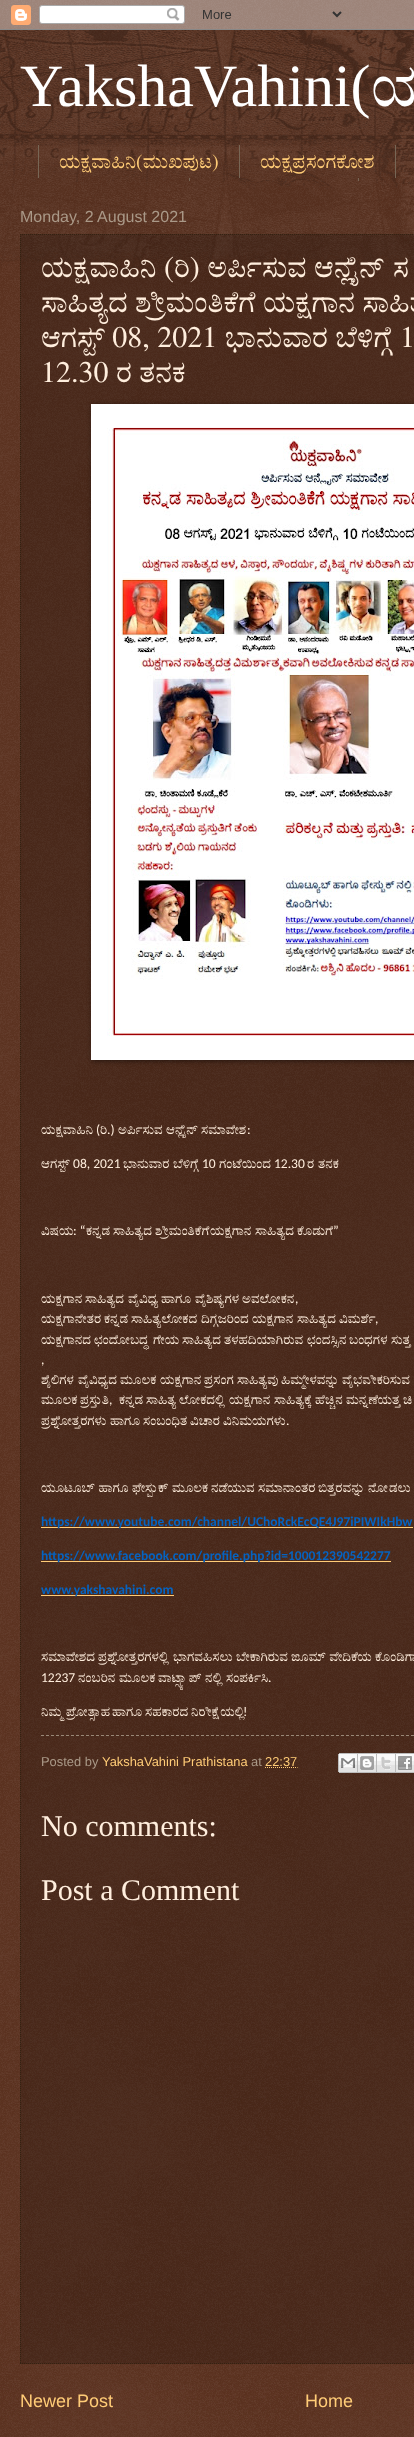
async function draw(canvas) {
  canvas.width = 414
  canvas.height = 2437
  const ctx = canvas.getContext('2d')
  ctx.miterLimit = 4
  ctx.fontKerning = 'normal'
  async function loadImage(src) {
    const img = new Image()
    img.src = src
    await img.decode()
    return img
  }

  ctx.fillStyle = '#441500'
  ctx.fillRect(0, 0, 414, 2437)
  ctx.drawImage(await loadImage('image0.png'), 0, 0, 414, 2437)
  ctx.drawImage(await loadImage('image1.png'), 0, 0, 414, 30)
  ctx.drawImage(await loadImage('image2.png'), 0, 30, 414, 240)
  ctx.font = '60px Liberation Serif'
  ctx.fillStyle = '#fff'
  ctx.fillText('YakshaVahini(', 20, 106)
  ctx.font = '60px FreeSerif'
  ctx.fillText('ಯ', 371, 106)
  ctx.fillStyle = '#765'
  ctx.fillRect(239, 145, 1, 33)
  ctx.fillRect(38, 145, 1, 33)
  ctx.font = '20px FreeSerif'
  ctx.fillStyle = '#fc7'
  ctx.fillText('ಯಕ್ಷವಾಹಿನಿ(ಮುಖಪುಟ)', 59, 168)
  ctx.fillStyle = '#765'
  ctx.fillRect(395, 145, 1, 33)
  ctx.fillStyle = '#fc7'
  ctx.fillText('ಯಕ್ಷಪ್ರಸಂಗಕೋಶ', 260, 168)
  ctx.fillStyle = '#765'
  ctx.fillRect(189, 178, 1, 3)
  ctx.fillRect(358, 178, 1, 3)
  ctx.font = '16px Liberation Sans'
  ctx.fillStyle = '#a98'
  ctx.fillText('Monday, 2 August 2021', 20, 222)
  ctx.fillStyle = '#00000033'
  ctx.fillRect(20, 234, 394, 2130)
  ctx.beginPath()
  ctx.moveTo(20, 234.5)
  ctx.lineTo(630, 234.5)
  ctx.strokeStyle = '#321'
  ctx.setLineDash([1, 1])
  ctx.stroke()
  ctx.beginPath()
  ctx.moveTo(20, 2363.5)
  ctx.lineTo(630, 2363.5)
  ctx.stroke()
  ctx.beginPath()
  ctx.moveTo(20.5, 234)
  ctx.lineTo(20.5, 2364)
  ctx.stroke()
  ctx.font = '30px FreeSerif'
  ctx.fillStyle = '#fed'
  ctx.fillText('ಯಕ್ಷವಾಹಿನಿ (ರಿ) ಅರ್ಪಿಸುವ ಆನ್ಲೈನ್‌ ಸ', 41, 277)
  ctx.fillText('ಸಾಹಿತ್ಯದ ಶ್ರೀಮಂತಿಕೆಗೆ ಯಕ್ಷಗಾನ ಸಾಹಿತ್ಯ', 41, 312)
  ctx.fillText('ಆಗಸ್ಟ್‌ 08, 2021 ಭಾನುವಾರ ಬೆಳಿಗ್ಗೆ 1', 41, 347)
  ctx.fillText('12.30 ರ ತನಕ', 41, 382)
  ctx.fillStyle = '#00000080'
  ctx.filter = 'blur(2.5px)'
  ctx.beginPath()
  ctx.rect(92, 405, 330, 656)
  ctx.fill()
  ctx.filter = 'none'
  ctx.fillStyle = '#fff'
  ctx.fillRect(91, 404, 323, 656)
  ctx.drawImage(await loadImage('image3.png'), 107, 427, 307, 609)
  ctx.font = '13.5px FreeSerif'
  ctx.fillStyle = '#fed'
  ctx.fillText('ಯಕ್ಷವಾಹಿನಿ', 41, 1134)
  ctx.font = '13.5px Carlito'
  ctx.fillText('(', 96, 1134)
  ctx.font = '13.5px FreeSerif'
  ctx.fillText('ರಿ', 100, 1134)
  ctx.font = '13.5px Carlito'
  ctx.fillText('.)', 107, 1134)
  ctx.font = '13.5px FreeSerif'
  ctx.fillText('ಅರ್ಪಿಸುವ ಆನ್ಲೈನ್', 118, 1134)
  ctx.fillText('ಸಮಾವೇಶ', 201, 1134)
  ctx.font = '13.5px Carlito'
  ctx.fillText(':', 247, 1134)
  ctx.font = '13.5px FreeSerif'
  ctx.fillText('ಆಗಸ್ಟ್', 41, 1168)
  ctx.font = '13.5px Carlito'
  ctx.fillText('‌ 08, 2021', 70, 1168)
  ctx.font = '13.5px FreeSerif'
  ctx.fillText('ಭಾನುವಾರ', 123, 1168)
  ctx.fillText('ಬೆಳಿಗ್ಗೆ', 173, 1168)
  ctx.font = '13.5px Carlito'
  ctx.fillText('10', 202, 1168)
  ctx.font = '13.5px FreeSerif'
  ctx.fillText('ಗಂಟೆಯಿಂದ', 219, 1168)
  ctx.font = '13.5px Carlito'
  ctx.fillText('12.30', 274, 1168)
  ctx.font = '13.5px FreeSerif'
  ctx.fillText('ರ', 307, 1168)
  ctx.fillText('ತನಕ', 318, 1168)
  ctx.fillText('ವಿಷಯ', 41, 1235)
  ctx.font = '13.5px Carlito'
  ctx.fillText(': “', 73, 1235)
  ctx.font = '13.5px FreeSerif'
  ctx.fillText('ಕನ್ನಡ', 86, 1235)
  ctx.fillText('ಸಾಹಿತ್ಯದ', 113, 1235)
  ctx.fillText('ಶ್ರೀಮಂತಿಕೆಗೆ', 155, 1235)
  ctx.fillText('ಯಕ್ಷಗಾನ', 210, 1235)
  ctx.fillText('ಸಾಹಿತ್ಯದ', 255, 1235)
  ctx.fillText('ಕೊಡುಗೆ', 297, 1235)
  ctx.font = '13.5px Carlito'
  ctx.fillText('”', 333, 1235)
  ctx.font = '13.5px FreeSerif'
  ctx.fillText('ಯಕ್ಷಗಾನ', 41, 1303)
  ctx.fillText('ಸಾಹಿತ್ಯದ', 85, 1303)
  ctx.fillText('ವೈವಿಧ್ಯ', 128, 1303)
  ctx.fillText('ಹಾಗೂ', 161, 1303)
  ctx.fillText('ವೈಶಿಷ್ಯಗಳ', 195, 1303)
  ctx.fillText('ಅವಲೋಕನ', 242, 1303)
  ctx.font = '13.5px Carlito'
  ctx.fillText(',', 295, 1303)
  ctx.font = '13.5px FreeSerif'
  ctx.fillText('ಯಕ್ಷಗಾನೇತರ', 41, 1323)
  ctx.fillText('ಕನ್ನಡ', 104, 1323)
  ctx.fillText('ಸಾಹಿತ್ಯಲೋಕದ', 131, 1323)
  ctx.fillText('ದಿಗ್ಗಜರಿಂದ', 201, 1323)
  ctx.fillText('ಯಕ್ಷಗಾನ', 252, 1323)
  ctx.fillText('ಸಾಹಿತ್ಯದ', 297, 1323)
  ctx.fillText('ವಿಮರ್ಶೆ', 339, 1323)
  ctx.font = '13.5px Carlito'
  ctx.fillText(',', 375, 1323)
  ctx.font = '13.5px FreeSerif'
  ctx.fillText('ಯಕ್ಷಗಾನದ', 41, 1344)
  ctx.fillText('ಛಂದೋಬದ್ಧ', 94, 1344)
  ctx.fillText('ಗೇಯ', 153, 1344)
  ctx.fillText('ಸಾಹಿತ್ಯದ', 182, 1344)
  ctx.fillText('ತಳಹದಿಯಾಗಿರುವ', 224, 1344)
  ctx.fillText('ಛಂದಸ್ಸಿನ', 307, 1344)
  ctx.fillText('ಬಂಧಗಳ', 349, 1344)
  ctx.fillText('ಸುತ್ತ', 391, 1344)
  ctx.font = '13.5px Carlito'
  ctx.fillText(',', 41, 1364)
  ctx.font = '13.5px FreeSerif'
  ctx.fillText('ಶೈಲಿಗಳ', 41, 1384)
  ctx.fillText('ವೈವಿಧ್ಯದ', 78, 1384)
  ctx.fillText('ಮೂಲಕ', 120, 1384)
  ctx.fillText('ಯಕ್ಷಗಾನ', 160, 1384)
  ctx.fillText('ಪ್ರಸಂಗ', 204, 1384)
  ctx.fillText('ಸಾಹಿತ್ಯವು', 237, 1384)
  ctx.fillText('ಹಿಮ್ಮೇಳವನ್ನು', 281, 1384)
  ctx.fillText('ವೈಭವೀಕರಿಸುವ', 342, 1384)
  ctx.fillText('ಮೂಲಕ', 41, 1404)
  ctx.fillText('ಪ್ರಸ್ತುತಿ', 80, 1404)
  ctx.font = '13.5px Carlito'
  ctx.fillText(',', 109, 1404)
  ctx.font = '13.5px FreeSerif'
  ctx.fillText('ಕನ್ನಡ', 119, 1404)
  ctx.fillText('ಸಾಹಿತ್ಯ', 146, 1404)
  ctx.fillText('ಲೋಕದಲ್ಲಿ', 179, 1404)
  ctx.fillText('ಯಕ್ಷಗಾನ', 229, 1404)
  ctx.fillText('ಸಾಹಿತ್ಯಕ್ಕೆ', 274, 1404)
  ctx.fillText('ಹೆಚ್ಚಿನ', 315, 1404)
  ctx.fillText('ಮನ್ನಣೆಯತ್ತ', 346, 1404)
  ctx.fillText('ಚಿ', 403, 1404)
  ctx.fillText('ಪ್ರಶ್ನೋತ್ತರಗಳು', 41, 1425)
  ctx.fillText('ಹಾಗೂ', 110, 1425)
  ctx.fillText('ಸಂಬಂಧಿತ', 143, 1425)
  ctx.fillText('ವಿಚಾರ', 190, 1425)
  ctx.fillText('ವಿನಿಮಯಗಳು', 223, 1425)
  ctx.font = '13.5px Carlito'
  ctx.fillText('.', 286, 1425)
  ctx.font = '13.5px FreeSerif'
  ctx.fillText('ಯೂಟೂಬ್ ಹಾಗೂ', 41, 1492)
  ctx.fillText('ಫೇಸ್ಬುಕ್ ಮೂಲಕ', 132, 1492)
  ctx.fillText('ನಡೆಯುವ', 211, 1492)
  ctx.fillText('ಸಮಾನಾಂತರ', 258, 1492)
  ctx.fillText('ಬಿತ್ತರವನ್ನು', 318, 1492)
  ctx.fillText('ನೋ', 368, 1492)
  ctx.fillText('ಡಲು', 389, 1492)
  ctx.fillStyle = '#fc7'
  ctx.fillRect(41, 1527, 372, 1)
  ctx.font = 'bold 13.5px Carlito'
  ctx.fillStyle = '#0563c1'
  ctx.fillText('https://www.youtube.com/channel/UChoRckEcQE4J97iPIWIkHbw', 41, 1526)
  ctx.fillStyle = '#fc7'
  ctx.fillRect(41, 1561, 350, 1)
  ctx.fillStyle = '#0563c1'
  ctx.fillText('https://www.facebook.com/profile.php?id=100012390542277', 41, 1560)
  ctx.fillStyle = '#fc7'
  ctx.fillRect(41, 1595, 133, 1)
  ctx.fillStyle = '#0563c1'
  ctx.fillText('www.yakshavahini.com', 41, 1594)
  ctx.font = '13.5px FreeSerif'
  ctx.fillStyle = '#fed'
  ctx.fillText('ಸಮಾವೇಶದ', 41, 1661)
  ctx.fillText('ಪ್ರಶ್ನೋತ್ತರಗಳಲ್ಲಿ', 98, 1661)
  ctx.fillText('ಭಾಗವಹಿಸಲು', 173, 1661)
  ctx.fillText('ಬೇಕಾಗಿರುವ', 236, 1661)
  ctx.fillText('ಙೂಮ್ ವೇದಿಕೆಯ', 291, 1661)
  ctx.fillText('ಕೊಂಡಿಗಾ', 375, 1661)
  ctx.font = '13.5px Carlito'
  ctx.fillText('12237', 41, 1682)
  ctx.font = '13.5px FreeSerif'
  ctx.fillText('ನಂಬರಿನ', 78, 1682)
  ctx.fillText('ಮೂಲಕ', 119, 1682)
  ctx.fillText('ವಾಟ್ಸ್ಯಾಪ್', 158, 1682)
  ctx.fillText('ನಲ್ಲಿ', 205, 1682)
  ctx.fillText('ಸಂಪರ್ಕಿಸಿ', 226, 1682)
  ctx.font = '13.5px Carlito'
  ctx.fillText('.', 268, 1682)
  ctx.font = '13.5px FreeSerif'
  ctx.fillText('ನಿಮ್ಮ', 41, 1716)
  ctx.fillText('ಪ್ರೋತ್ಸಾಹ', 66, 1716)
  ctx.fillText('ಹಾಗೂ', 112, 1716)
  ctx.fillText('ಸಹಕಾರದ', 145, 1716)
  ctx.fillText('ನಿರೀಕ್ಷೆಯಲ್ಲಿ', 191, 1716)
  ctx.font = '13.5px Carlito'
  ctx.fillText('!', 243, 1716)
  ctx.beginPath()
  ctx.moveTo(41, 1735.5)
  ctx.lineTo(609, 1735.5)
  ctx.strokeStyle = '#987'
  ctx.setLineDash([3, 2])
  ctx.stroke()
  ctx.font = '12.9px Liberation Sans'
  ctx.fillStyle = '#a98'
  ctx.fillText('Posted by', 41, 1766)
  ctx.fillStyle = '#fc7'
  ctx.fillText('YakshaVahini Prathistana', 102, 1766)
  ctx.fillStyle = '#a98'
  ctx.fillText('at', 251, 1766)
  ctx.fillStyle = '#fc7'
  ctx.fillText('22:37', 265, 1766)
  ctx.beginPath()
  ctx.moveTo(265, 1767.5)
  ctx.lineTo(297.5, 1767.5)
  ctx.strokeStyle = '#fc7'
  ctx.setLineDash([1, 1])
  ctx.stroke()
  ctx.drawImage(await loadImage('image4.png'), 338, 1753, 20, 20)
  ctx.drawImage(await loadImage('image5.png'), 358, 1753, 19, 20)
  ctx.drawImage(await loadImage('image6.png'), 377, 1753, 19, 20)
  ctx.drawImage(await loadImage('image7.png'), 396, 1753, 18, 20)
  ctx.font = '30px Liberation Serif'
  ctx.fillStyle = '#fed'
  ctx.fillText('No comments:', 41, 1836)
  ctx.fillText('Post a Comment', 41, 1900)
  ctx.font = '18px Liberation Sans'
  ctx.fillStyle = '#fc7'
  ctx.fillText('Newer Post', 20, 2407)
  ctx.fillText('Home', 305, 2407)
}

draw(document.querySelector('canvas'))
